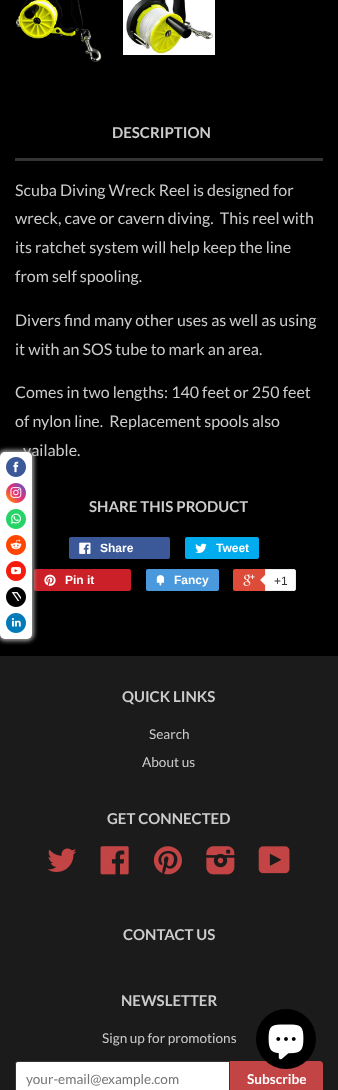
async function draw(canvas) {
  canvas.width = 338
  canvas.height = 1090
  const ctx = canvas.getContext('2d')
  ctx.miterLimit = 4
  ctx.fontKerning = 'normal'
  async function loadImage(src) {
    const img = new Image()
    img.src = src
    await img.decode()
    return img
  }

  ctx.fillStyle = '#000'
  ctx.fillRect(0, 0, 338, 1090)
  ctx.drawImage(await loadImage('image0.png'), 16, 0, 86, 62)
  ctx.drawImage(await loadImage('image1.png'), 123, 0, 92, 55)
  ctx.fillStyle = '#343434'
  ctx.fillRect(15, 158, 308, 3)
  ctx.font = 'bold 15px Lato'
  ctx.fillStyle = '#ccc'
  ctx.fillText('DESCRIPTION', 112, 138)
  ctx.font = '16px Lato'
  ctx.fillText('Scuba Diving Wreck Reel is designed for', 15, 196)
  ctx.fillText('wreck, cave or cavern diving.  This reel with', 15, 224)
  ctx.fillText('its ratchet system will help keep the line', 15, 253)
  ctx.fillText('from self spooling.', 15, 282)
  ctx.fillText('Divers find many other uses as well as using', 15, 326)
  ctx.fillText('it with an SOS tube to mark an area.', 15, 355)
  ctx.fillText('Comes in two lengths: 140 feet or 250 feet', 15, 398)
  ctx.fillText('of nylon line.  Replacement spools also', 15, 427)
  ctx.fillText('vailable.', 23, 456)
  ctx.font = 'bold 15px Lato'
  ctx.fillText('SHARE THIS PRODUCT', 89, 512)
  ctx.fillStyle = '#3b5998'
  ctx.beginPath()
  ctx.roundRect(69, 537, 101, 22, 2)
  ctx.fill()
  ctx.drawImage(await loadImage('image2.png'), 79, 542, 12, 12)
  ctx.font = 'bold 12px Liberation Sans'
  ctx.fillStyle = '#fff'
  ctx.fillText('Share', 100, 552)
  ctx.fillStyle = '#00aced'
  ctx.beginPath()
  ctx.roundRect(185, 537, 74, 22, 2)
  ctx.fill()
  ctx.drawImage(await loadImage('image3.png'), 195, 543, 12, 10)
  ctx.fillStyle = '#fff'
  ctx.fillText('Tweet', 216, 552)
  ctx.fillStyle = '#cb2027'
  ctx.beginPath()
  ctx.roundRect(34, 569, 97, 22, 2)
  ctx.fill()
  ctx.drawImage(await loadImage('image4.png'), 44, 574, 12, 12)
  ctx.fillStyle = '#fff'
  ctx.fillText('Pin it', 65, 584)
  ctx.fillStyle = '#4999dc'
  ctx.beginPath()
  ctx.roundRect(146, 569, 73, 22, 2)
  ctx.fill()
  ctx.drawImage(await loadImage('image5.png'), 156, 575, 9, 11)
  ctx.fillStyle = '#fff'
  ctx.fillText('Fancy', 174, 584)
  ctx.fillStyle = '#dd4b39'
  ctx.beginPath()
  ctx.roundRect(233, 569, 61, 22, 2)
  ctx.fill()
  ctx.drawImage(await loadImage('image6.png'), 243, 574, 12, 12)
  ctx.fillStyle = '#fff'
  ctx.beginPath()
  ctx.roundRect(265.5, 569.5, 30, 21, [0, 1.5, 1.5, 0])
  ctx.fill()
  ctx.strokeStyle = '#ececec'
  ctx.stroke()
  ctx.fillStyle = '#ececec'
  ctx.beginPath()
  ctx.moveTo(266, 574)
  ctx.lineTo(266, 586)
  ctx.lineTo(260, 580)
  ctx.closePath()
  ctx.fill()
  ctx.fillStyle = '#fff'
  ctx.beginPath()
  ctx.moveTo(267, 574)
  ctx.lineTo(267, 586)
  ctx.lineTo(261, 580)
  ctx.closePath()
  ctx.fill()
  ctx.font = '12px Liberation Sans'
  ctx.fillStyle = '#333'
  ctx.fillText('+1', 274, 585)
  ctx.fillStyle = '#9e9e9e'
  ctx.filter = 'blur(2px)'
  ctx.beginPath()
  ctx.roundRect(-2, 450, 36, 191, 7)
  ctx.fill()
  ctx.filter = 'none'
  ctx.fillStyle = '#fff'
  ctx.beginPath()
  ctx.roundRect(0, 452, 32, 187, 5)
  ctx.fill()
  ctx.drawImage(await loadImage('image7.png'), 6, 457, 20, 20)
  ctx.drawImage(await loadImage('image8.png'), 6, 483, 20, 20)
  ctx.drawImage(await loadImage('image9.png'), 6, 509, 20, 20)
  ctx.drawImage(await loadImage('image10.png'), 6, 535, 20, 20)
  ctx.drawImage(await loadImage('image11.png'), 6, 561, 20, 20)
  ctx.drawImage(await loadImage('image12.png'), 6, 587, 20, 20)
  ctx.drawImage(await loadImage('image13.png'), 6, 613, 20, 20)
  ctx.fillStyle = '#1b1b1b'
  ctx.fillRect(0, 656, 338, 434)
  ctx.font = 'bold 15px Lato'
  ctx.fillStyle = '#ccc'
  ctx.fillText('QUICK LINKS', 122, 702)
  ctx.font = '13.6px Lato'
  ctx.fillText('Search', 149, 739)
  ctx.fillText('About us', 142, 767)
  ctx.font = 'bold 15px Lato'
  ctx.fillText('GET CONNECTED', 107, 824)
  ctx.drawImage(await loadImage('image14.png'), 47, 848, 30, 24)
  ctx.drawImage(await loadImage('image15.png'), 100, 846, 29, 29)
  ctx.drawImage(await loadImage('image16.png'), 153, 846, 29, 29)
  ctx.drawImage(await loadImage('image17.png'), 206, 846, 29, 29)
  ctx.drawImage(await loadImage('image18.png'), 258, 846, 32, 28)
  ctx.fillText('CONTACT US', 123, 940)
  ctx.fillText('NEWSLETTER', 121, 1006)
  ctx.font = '13.6px Lato'
  ctx.fillText('Sign up for promotions', 102, 1043)
  ctx.fillStyle = '#fff'
  ctx.beginPath()
  ctx.moveTo(18, 1061.5)
  ctx.lineTo(229.5, 1061.5)
  ctx.lineTo(229.5, 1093.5)
  ctx.lineTo(18, 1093.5)
  ctx.bezierCurveTo(16.5, 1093.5, 15.5, 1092.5, 15.5, 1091)
  ctx.lineTo(15.5, 1064)
  ctx.bezierCurveTo(15.5, 1062.5, 16.5, 1061.5, 18, 1061.5)
  ctx.closePath()
  ctx.fill()
  ctx.strokeStyle = '#343434'
  ctx.stroke()
  ctx.fillStyle = '#757575'
  ctx.fillText('your-email@example.com', 26, 1084)
  ctx.fillStyle = '#c24444'
  ctx.beginPath()
  ctx.moveTo(230, 1061)
  ctx.lineTo(320, 1061)
  ctx.bezierCurveTo(321.5, 1061, 323, 1062.5, 323, 1064)
  ctx.lineTo(323, 1090)
  ctx.bezierCurveTo(323, 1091.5, 321.5, 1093, 320, 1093)
  ctx.lineTo(230, 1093)
  ctx.closePath()
  ctx.fill()
  ctx.font = 'bold 13.6px Lato'
  ctx.fillStyle = '#fff'
  ctx.fillText('Subscribe', 247, 1084)
  ctx.fillStyle = '#000'
  ctx.beginPath()
  ctx.arc(286, 1039, 30, 0, 2 * Math.PI)
  ctx.fill()
  ctx.drawImage(await loadImage('image19.png'), 268, 1024, 36, 36)
}

draw(document.querySelector('canvas'))
